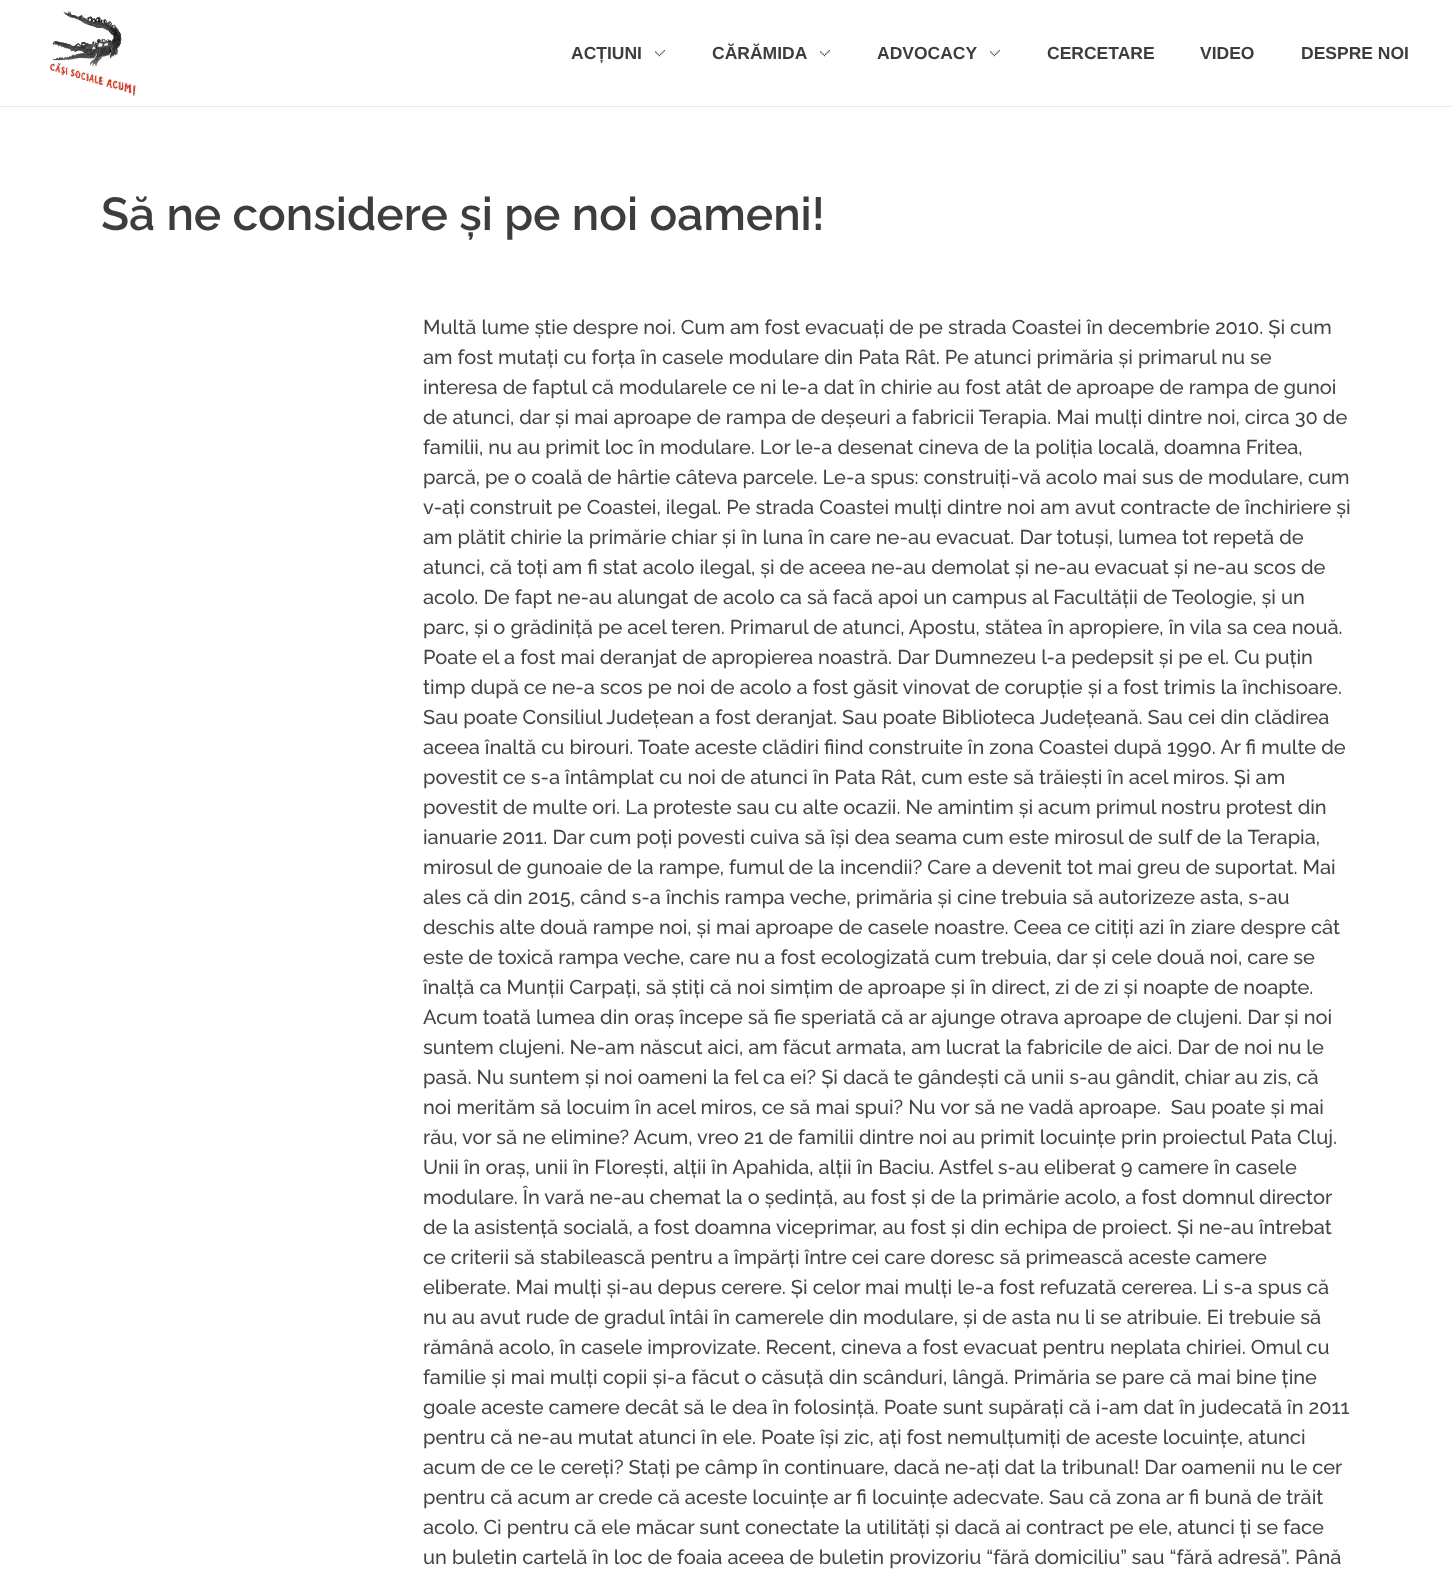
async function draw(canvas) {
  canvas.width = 1452
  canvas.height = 1587
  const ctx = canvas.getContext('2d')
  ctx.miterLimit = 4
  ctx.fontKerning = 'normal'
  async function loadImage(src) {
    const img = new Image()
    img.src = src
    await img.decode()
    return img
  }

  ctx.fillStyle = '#fff'
  ctx.fillRect(0, 0, 1452, 1587)
  ctx.fillStyle = '#eaeaea'
  ctx.fillRect(0, 106, 1452, 1)
  ctx.drawImage(await loadImage('image0.png'), 50, 11, 87, 85)
  ctx.font = 'bold 17.5px Liberation Sans'
  ctx.fillStyle = '#3d3d3d'
  ctx.fillText('ACȚIUNI', 571, 59)
  ctx.drawImage(await loadImage('image1.png'), 655, 50, 10, 7)
  ctx.fillText('CĂRĂMIDA', 712, 59)
  ctx.drawImage(await loadImage('image1.png'), 820, 50, 10, 7)
  ctx.fillText('ADVOCACY', 877, 59)
  ctx.drawImage(await loadImage('image1.png'), 990, 50, 10, 7)
  ctx.fillText('CERCETARE', 1047, 59)
  ctx.fillText('VIDEO', 1200, 59)
  ctx.fillText('DESPRE NOI', 1301, 59)
  ctx.font = '600 46px Raleway'
  ctx.fillText('Să ne considere și pe noi oameni!', 101, 230)
  ctx.font = '500 20px Raleway'
  ctx.fillStyle = '#444'
  ctx.fillText('Multă lume știe despre noi. Cum am fost evacuați de pe strada Coastei în decembrie 2010. Și cum', 423, 334)
  ctx.fillText('am fost mutați cu forța în casele modulare din Pata Rât. Pe atunci primăria și primarul nu se', 423, 364)
  ctx.fillText('interesa de faptul că modularele ce ni le-a dat în chirie au fost atât de aproape de rampa de gunoi', 423, 394)
  ctx.fillText('de atunci, dar și mai aproape de rampa de deșeuri a fabricii Terapia. Mai mulți dintre noi, circa 30 de', 423, 424)
  ctx.fillText('familii, nu au primit loc în modulare. Lor le-a desenat cineva de la poliția locală, doamna Fritea,', 423, 454)
  ctx.fillText('parcă, pe o coală de hârtie câteva parcele. Le-a spus: construiți-vă acolo mai sus de modulare, cum', 423, 484)
  ctx.fillText('v-ați construit pe Coastei, ilegal. Pe strada Coastei mulți dintre noi am avut contracte de închiriere și', 423, 514)
  ctx.fillText('am plătit chirie la primărie chiar și în luna în care ne-au evacuat. Dar totuși, lumea tot repetă de', 423, 544)
  ctx.fillText('atunci, că toți am fi stat acolo ilegal, și de aceea ne-au demolat și ne-au evacuat și ne-au scos de', 423, 574)
  ctx.fillText('acolo. De fapt ne-au alungat de acolo ca să facă apoi un campus al Facultății de Teologie, și un', 423, 604)
  ctx.fillText('parc, și o grădiniță pe acel teren. Primarul de atunci, Apostu, stătea în apropiere, în vila sa cea nouă.', 423, 634)
  ctx.fillText('Poate el a fost mai deranjat de apropierea noastră. Dar Dumnezeu l-a pedepsit și pe el. Cu puțin', 423, 664)
  ctx.fillText('timp după ce ne-a scos pe noi de acolo a fost găsit vinovat de corupție și a fost trimis la închisoare.', 423, 694)
  ctx.fillText('Sau poate Consiliul Județean a fost deranjat. Sau poate Biblioteca Județeană. Sau cei din clădirea', 423, 724)
  ctx.fillText('aceea înaltă cu birouri. Toate aceste clădiri fiind construite în zona Coastei după 1990. Ar fi multe de', 423, 754)
  ctx.fillText('povestit ce s-a întâmplat cu noi de atunci în Pata Rât, cum este să trăiești în acel miros. Și am', 423, 784)
  ctx.fillText('povestit de multe ori. La proteste sau cu alte ocazii. Ne amintim și acum primul nostru protest din', 423, 814)
  ctx.fillText('ianuarie 2011. Dar cum poți povesti cuiva să își dea seama cum este mirosul de sulf de la Terapia,', 423, 844)
  ctx.fillText('mirosul de gunoaie de la rampe, fumul de la incendii? Care a devenit tot mai greu de suportat. Mai', 423, 874)
  ctx.fillText('ales că din 2015, când s-a închis rampa veche, primăria și cine trebuia să autorizeze asta, s-au', 423, 904)
  ctx.fillText('deschis alte două rampe noi, și mai aproape de casele noastre. Ceea ce citiți azi în ziare despre cât', 423, 934)
  ctx.fillText('este de toxică rampa veche, care nu a fost ecologizată cum trebuia, dar și cele două noi, care se', 423, 964)
  ctx.fillText('înalță ca Munții Carpați, să știți că noi simțim de aproape și în direct, zi de zi și noapte de noapte.', 423, 994)
  ctx.fillText('Acum toată lumea din oraș începe să fie speriată că ar ajunge otrava aproape de clujeni. Dar și noi', 423, 1024)
  ctx.fillText('suntem clujeni. Ne-am născut aici, am făcut armata, am lucrat la fabricile de aici. Dar de noi nu le', 423, 1054)
  ctx.fillText('pasă. Nu suntem și noi oameni la fel ca ei? Și dacă te gândești că unii s-au gândit, chiar au zis, că', 423, 1084)
  ctx.fillText('noi merităm să locuim în acel miros, ce să mai spui? Nu vor să ne vadă aproape.  Sau poate și mai', 423, 1114)
  ctx.fillText('rău, vor să ne elimine? Acum, vreo 21 de familii dintre noi au primit locuințe prin proiectul Pata Cluj.', 423, 1144)
  ctx.fillText('Unii în oraș, unii în Florești, alții în Apahida, alții în Baciu. Astfel s-au eliberat 9 camere în casele', 423, 1174)
  ctx.fillText('modulare. În vară ne-au chemat la o ședință, au fost și de la primărie acolo, a fost domnul director', 423, 1204)
  ctx.fillText('de la asistență socială, a fost doamna viceprimar, au fost și din echipa de proiect. Și ne-au întrebat', 423, 1234)
  ctx.fillText('ce criterii să stabilească pentru a împărți între cei care doresc să primească aceste camere', 423, 1264)
  ctx.fillText('eliberate. Mai mulți și-au depus cerere. Și celor mai mulți le-a fost refuzată cererea. Li s-a spus că', 423, 1294)
  ctx.fillText('nu au avut rude de gradul întâi în camerele din modulare, și de asta nu li se atribuie. Ei trebuie să', 423, 1324)
  ctx.fillText('rămână acolo, în casele improvizate. Recent, cineva a fost evacuat pentru neplata chiriei. Omul cu', 423, 1354)
  ctx.fillText('familie și mai mulți copii și-a făcut o căsuță din scânduri, lângă. Primăria se pare că mai bine ține', 423, 1384)
  ctx.fillText('goale aceste camere decât să le dea în folosință. Poate sunt supărați că i-am dat în judecată în 2011', 423, 1414)
  ctx.fillText('pentru că ne-au mutat atunci în ele. Poate își zic, ați fost nemulțumiți de aceste locuințe, atunci', 423, 1444)
  ctx.fillText('acum de ce le cereți? Stați pe câmp în continuare, dacă ne-ați dat la tribunal! Dar oamenii nu le cer', 423, 1474)
  ctx.fillText('pentru că acum ar crede că aceste locuințe ar fi locuințe adecvate. Sau că zona ar fi bună de trăit', 423, 1504)
  ctx.fillText('acolo. Ci pentru că ele măcar sunt conectate la utilități și dacă ai contract pe ele, atunci ți se face', 423, 1534)
  ctx.fillText('un buletin cartelă în loc de foaia aceea de buletin provizoriu “fără domiciliu” sau “fără adresă”. Până', 423, 1564)
}

draw(document.querySelector('canvas'))
